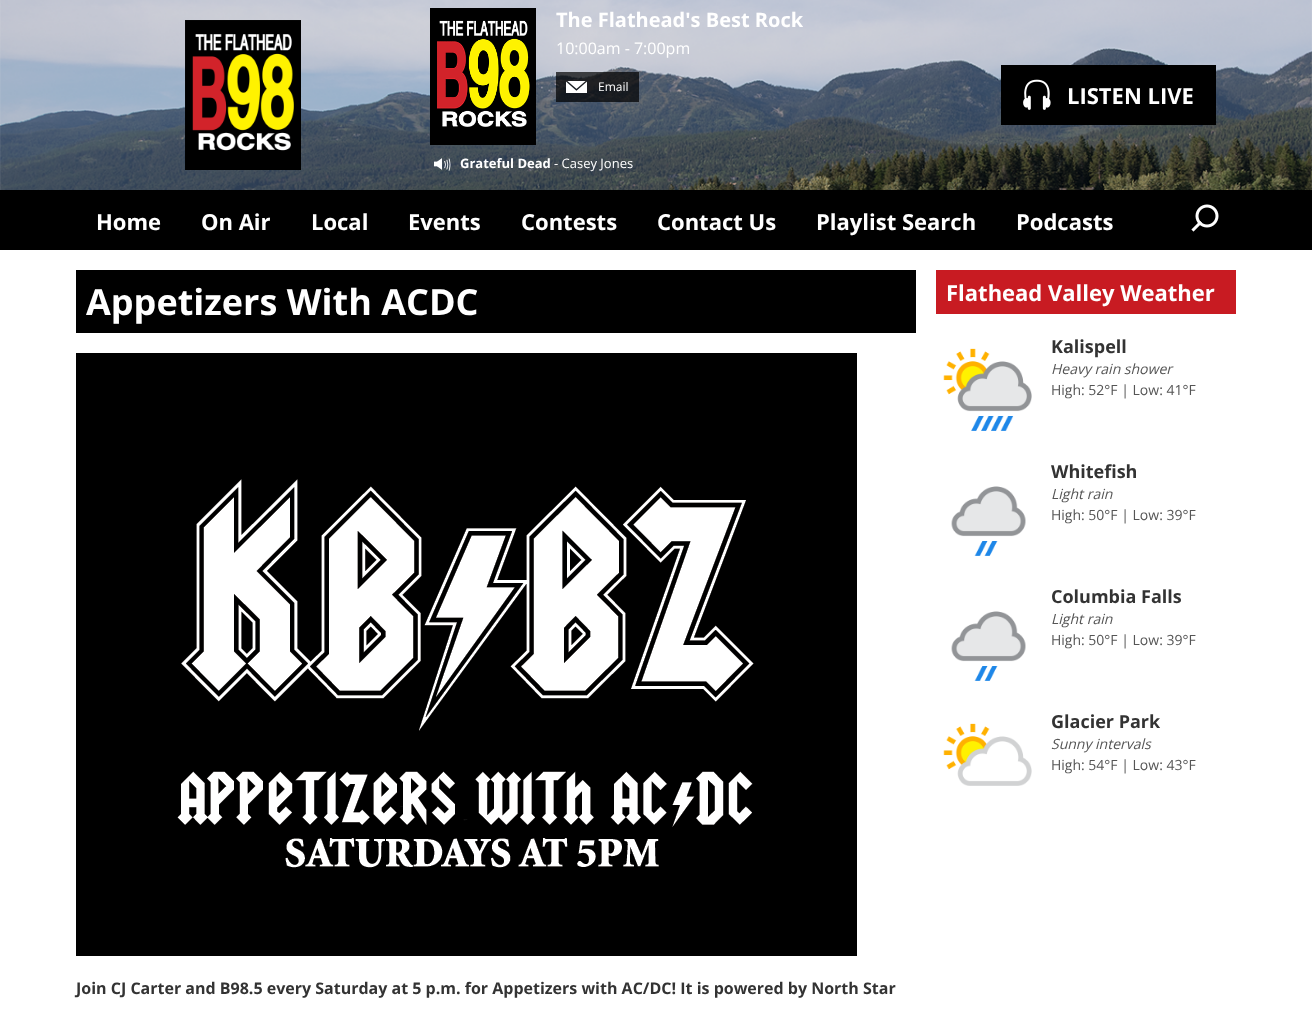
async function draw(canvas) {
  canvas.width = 1312
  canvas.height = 1010
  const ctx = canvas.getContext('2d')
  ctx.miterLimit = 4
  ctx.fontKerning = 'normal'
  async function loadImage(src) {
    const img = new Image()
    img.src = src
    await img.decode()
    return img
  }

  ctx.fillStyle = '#fff'
  ctx.fillRect(0, 0, 1312, 1010)
  ctx.drawImage(await loadImage('image0.png'), 0, 0, 1312, 190)
  ctx.drawImage(await loadImage('image1.png'), 185, 20, 116, 150)
  ctx.drawImage(await loadImage('image2.png'), 430, 8, 106, 137)
  ctx.font = 'bold 20px Open Sans'
  ctx.fillText('The Flathead\'s Best Rock', 556, 27)
  ctx.font = '16px Open Sans'
  ctx.fillText('10:00am - 7:00pm', 556, 54)
  ctx.fillStyle = '#000000b3'
  ctx.fillRect(556, 72, 83, 30)
  ctx.drawImage(await loadImage('image3.png'), 566, 81, 21, 12)
  ctx.font = '12px Open Sans'
  ctx.fillStyle = '#fff'
  ctx.fillText('Email', 598, 91)
  ctx.drawImage(await loadImage('image4.png'), 434, 158, 17, 13)
  ctx.font = 'bold 13px Open Sans'
  ctx.fillText('Grateful Dead', 460, 168)
  ctx.font = '13px Open Sans'
  ctx.fillText('- Casey Jones', 554, 168)
  ctx.fillStyle = '#000'
  ctx.fillRect(1001, 65, 215, 60)
  ctx.drawImage(await loadImage('image5.png'), 1023, 79, 28, 31)
  ctx.font = 'bold 22px Open Sans'
  ctx.fillStyle = '#fff'
  ctx.fillText('LISTEN LIVE', 1067, 104)
  ctx.fillStyle = '#000'
  ctx.fillRect(0, 190, 1312, 60)
  ctx.fillStyle = '#fff'
  ctx.fillText('Home', 96, 230)
  ctx.fillText('On Air', 201, 230)
  ctx.fillText('Local', 311, 230)
  ctx.fillText('Events', 408, 230)
  ctx.fillText('Contests', 521, 230)
  ctx.fillText('Contact Us', 657, 230)
  ctx.fillText('Playlist Search', 816, 230)
  ctx.fillText('Podcasts', 1016, 230)
  ctx.drawImage(await loadImage('image6.png'), 1191, 204, 28, 28)
  ctx.fillStyle = '#000'
  ctx.fillRect(76, 270, 840, 63)
  ctx.font = 'bold 36px Open Sans'
  ctx.fillStyle = '#fff'
  ctx.fillText('Appetizers With ACDC', 86, 315)
  ctx.drawImage(await loadImage('image7.png'), 76, 353, 781, 603)
  ctx.font = 'bold 16px Open Sans'
  ctx.fillStyle = '#333'
  ctx.fillText('Join CJ Carter and B98.5 every Saturday at 5 p.m. for Appetizers with AC/DC! It is powered by North Star', 76, 994)
  ctx.fillStyle = '#c81b22'
  ctx.fillRect(936, 270, 300, 44)
  ctx.font = 'bold 22px Open Sans'
  ctx.fillStyle = '#fff'
  ctx.fillText('Flathead Valley Weather', 946, 301)
  ctx.drawImage(await loadImage('image8.png'), 943, 348, 89, 83)
  ctx.font = 'bold 18px Open Sans'
  ctx.fillStyle = '#333'
  ctx.fillText('Kalispell', 1051, 353)
  ctx.font = 'italic 14px Open Sans'
  ctx.fillStyle = '#555'
  ctx.fillText('Heavy rain shower', 1051, 374)
  ctx.font = '14px Open Sans'
  ctx.fillText('High: 52°F | Low: 41°F', 1051, 395)
  ctx.drawImage(await loadImage('image9.png'), 951, 486, 75, 70)
  ctx.font = 'bold 18px Open Sans'
  ctx.fillStyle = '#333'
  ctx.fillText('Whitefish', 1051, 478)
  ctx.font = 'italic 14px Open Sans'
  ctx.fillStyle = '#555'
  ctx.fillText('Light rain', 1051, 499)
  ctx.font = '14px Open Sans'
  ctx.fillText('High: 50°F | Low: 39°F', 1051, 520)
  ctx.drawImage(await loadImage('image9.png'), 951, 611, 75, 70)
  ctx.font = 'bold 18px Open Sans'
  ctx.fillStyle = '#333'
  ctx.fillText('Columbia Falls', 1051, 603)
  ctx.font = 'italic 14px Open Sans'
  ctx.fillStyle = '#555'
  ctx.fillText('Light rain', 1051, 624)
  ctx.font = '14px Open Sans'
  ctx.fillText('High: 50°F | Low: 39°F', 1051, 645)
  ctx.drawImage(await loadImage('image10.png'), 943, 723, 89, 63)
  ctx.font = 'bold 18px Open Sans'
  ctx.fillStyle = '#333'
  ctx.fillText('Glacier Park', 1051, 728)
  ctx.font = 'italic 14px Open Sans'
  ctx.fillStyle = '#555'
  ctx.fillText('Sunny intervals', 1051, 749)
  ctx.font = '14px Open Sans'
  ctx.fillText('High: 54°F | Low: 43°F', 1051, 770)
}

draw(document.querySelector('canvas'))
